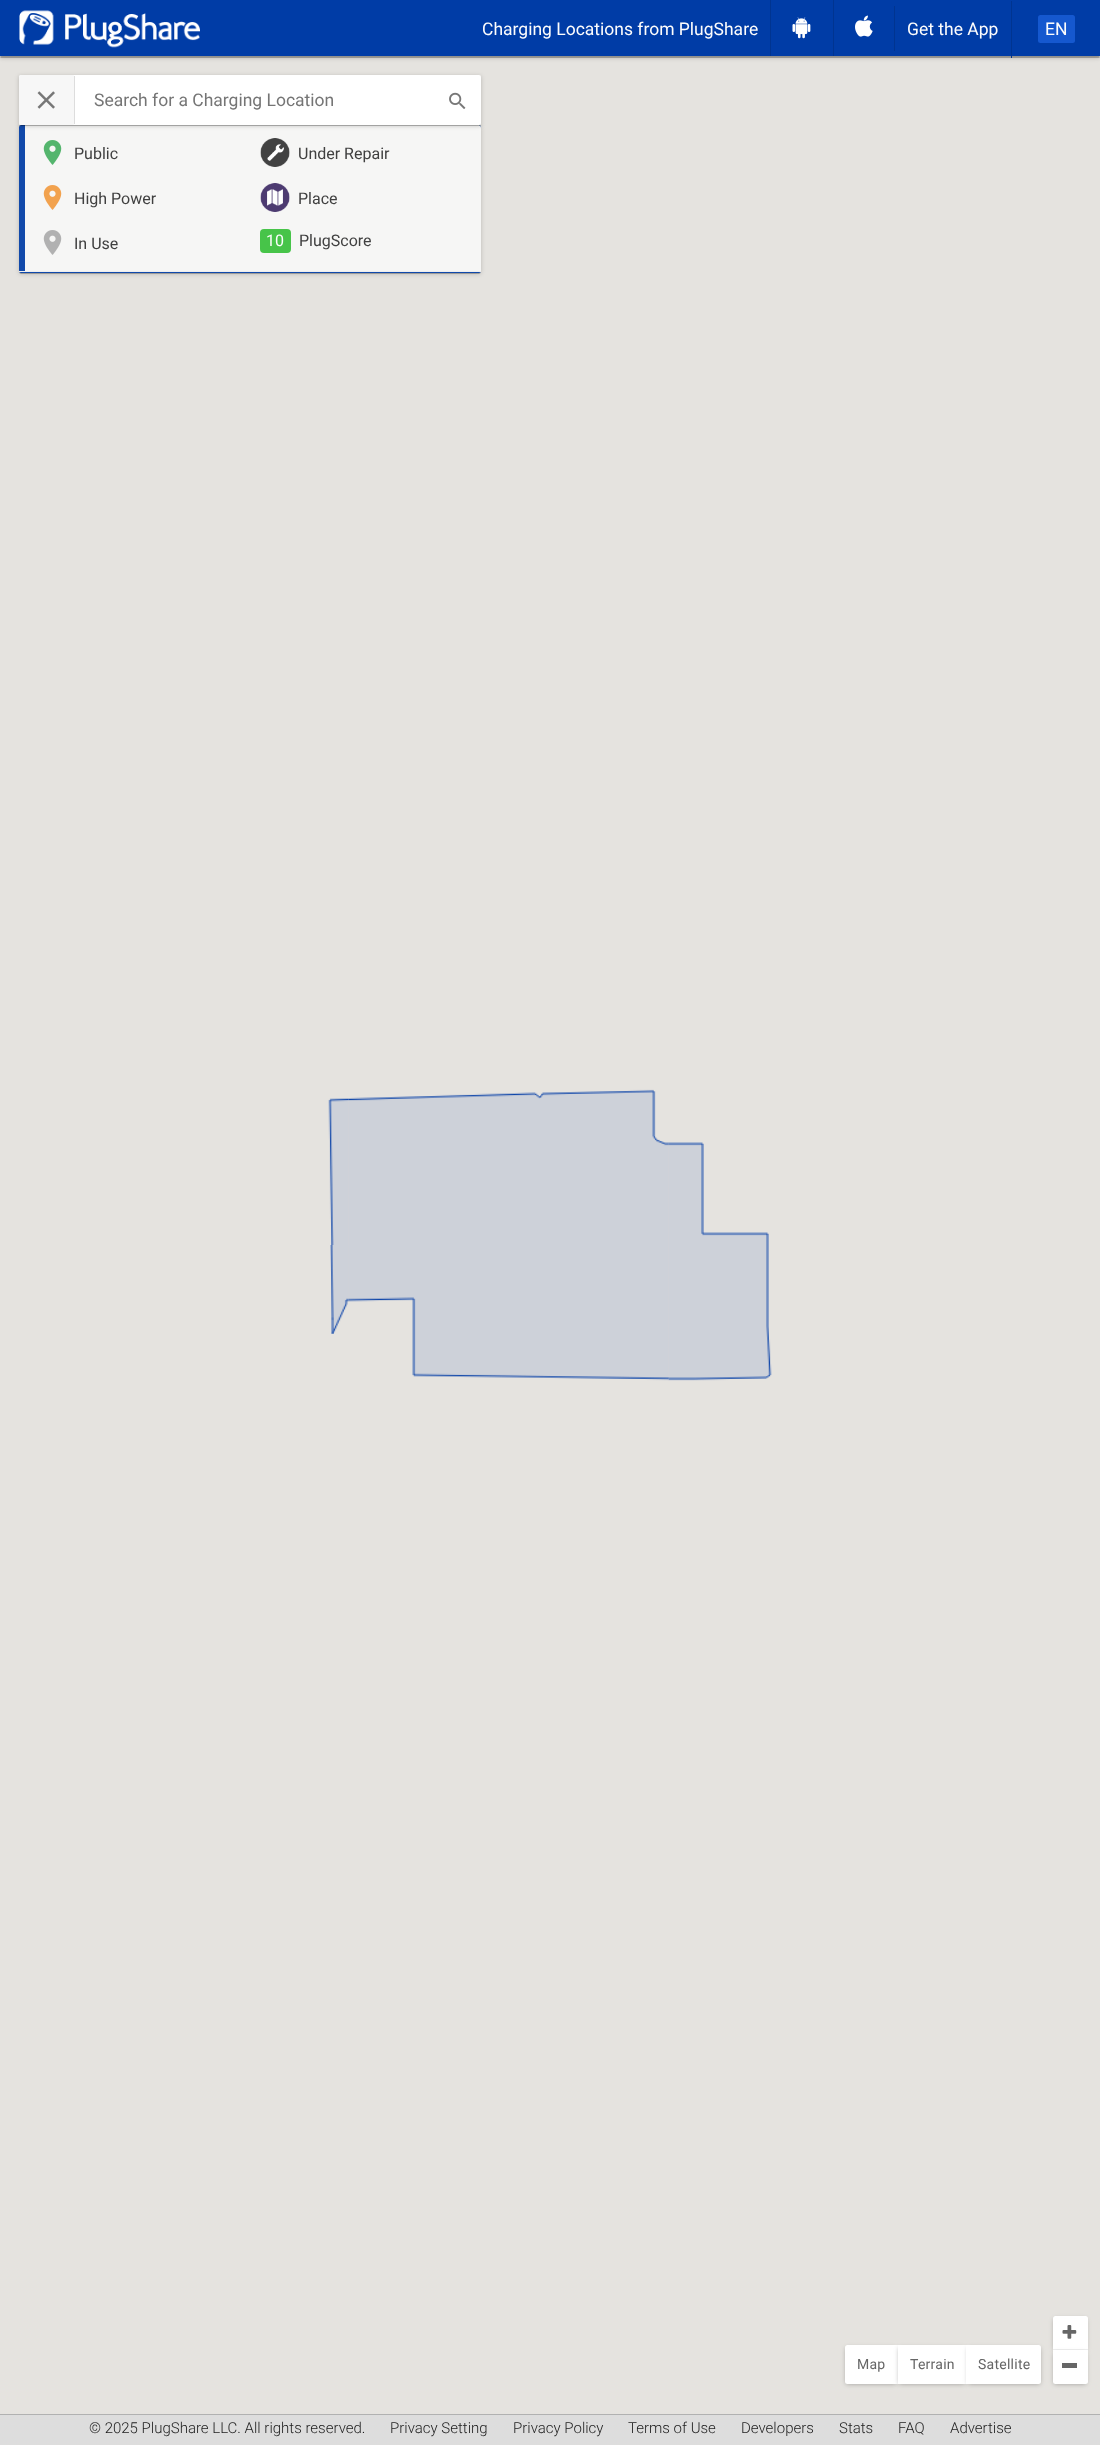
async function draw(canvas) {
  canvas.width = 1100
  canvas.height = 2445
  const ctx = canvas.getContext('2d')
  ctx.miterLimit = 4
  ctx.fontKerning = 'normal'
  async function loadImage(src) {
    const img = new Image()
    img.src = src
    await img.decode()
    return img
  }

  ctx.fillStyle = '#ddd'
  ctx.fillRect(0, 0, 1100, 2445)
  ctx.fillStyle = '#e5e3df'
  ctx.fillRect(0, 56, 1100, 2358)
  ctx.fillStyle = '#0000001f'
  ctx.filter = 'blur(0.5px)'
  ctx.beginPath()
  ctx.rect(1, 4, 1098, 54)
  ctx.fill()
  ctx.filter = 'none'
  ctx.fillStyle = '#00000024'
  ctx.filter = 'blur(0.5px)'
  ctx.beginPath()
  ctx.rect(0, 1, 1100, 57)
  ctx.fill()
  ctx.filter = 'none'
  ctx.fillStyle = '#00000033'
  ctx.filter = 'blur(2px)'
  ctx.beginPath()
  ctx.rect(0, 1, 1100, 57)
  ctx.fill()
  ctx.filter = 'none'
  ctx.fillStyle = '#003ca6'
  ctx.fillRect(0, 0, 1100, 56)
  ctx.drawImage(await loadImage('image0.png'), 19, 10, 181, 38)
  ctx.font = '17.5px Roboto'
  ctx.fillStyle = '#fdfdfd'
  ctx.fillText('Charging Locations from PlugShare', 482, 35)
  ctx.fillStyle = '#003490'
  ctx.fillRect(770, 0, 1, 56)
  ctx.drawImage(await loadImage('image1.png'), 792, 17, 19, 22)
  ctx.fillRect(833, 0, 1, 56)
  ctx.drawImage(await loadImage('image2.png'), 855, 15, 18, 22)
  ctx.fillRect(894, 6, 1, 45)
  ctx.fillStyle = '#fdfdfd'
  ctx.fillText('Get the App', 907, 35)
  ctx.fillStyle = '#003490'
  ctx.fillRect(1011, 1, 1, 57)
  ctx.fillStyle = '#1558cf'
  ctx.beginPath()
  ctx.roundRect(1038, 15, 37, 28, 2.5)
  ctx.fill()
  ctx.fillStyle = '#fdfdfd'
  ctx.fillText('EN', 1045, 35)
  ctx.fillStyle = '#b1b1b1'
  ctx.fillRect(0, 2414, 1100, 1)
  ctx.drawImage(await loadImage('image3.png'), 328, 1098, 21, 147)
  ctx.drawImage(await loadImage('image4.png'), 348, 1089, 321, 156)
  ctx.drawImage(await loadImage('image5.png'), 668, 1142, 101, 103)
  ctx.drawImage(await loadImage('image7.png'), 348, 1245, 321, 136)
  ctx.drawImage(await loadImage('image6.png'), 330, 1245, 19, 89)
  ctx.drawImage(await loadImage('image8.png'), 668, 1245, 104, 136)
  ctx.fillStyle = '#11111124'
  ctx.filter = 'blur(0.5px)'
  ctx.beginPath()
  ctx.roundRect(19, 126, 462, 148, 2.5)
  ctx.fill()
  ctx.filter = 'none'
  ctx.fillStyle = '#11111133'
  ctx.filter = 'blur(2px)'
  ctx.beginPath()
  ctx.roundRect(19, 126, 462, 148, 2.5)
  ctx.fill()
  ctx.filter = 'none'
  ctx.fillStyle = '#fff'
  ctx.beginPath()
  ctx.roundRect(19, 75, 462, 50, 2.5)
  ctx.fill()
  ctx.fillStyle = '#1111111f'
  ctx.filter = 'blur(0.5px)'
  ctx.beginPath()
  ctx.roundRect(20, 129, 460, 145, 1)
  ctx.fill()
  ctx.filter = 'none'
  ctx.fillStyle = '#1149aa'
  ctx.beginPath()
  ctx.roundRect(19, 125, 462, 148, 2.5)
  ctx.fill()
  ctx.save()
  ctx.beginPath()
  ctx.roundRect(19, 125, 462, 148, 2.5)
  ctx.clip()
  ctx.fillStyle = '#f6f6f5'
  ctx.beginPath()
  ctx.roundRect(25, 125, 456, 146, [0, 2.5, 0, 0])
  ctx.fill()
  ctx.restore()
  ctx.save()
  ctx.beginPath()
  ctx.rect(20, 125, 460, 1)
  ctx.clip()
  ctx.fillStyle = '#0000001f'
  ctx.filter = 'blur(0.5px)'
  ctx.beginPath()
  ctx.rect(20, 79, 460, 47)
  ctx.fill()
  ctx.filter = 'none'
  ctx.restore()
  ctx.save()
  ctx.beginPath()
  ctx.rect(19, 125, 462, 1)
  ctx.clip()
  ctx.fillStyle = '#00000024'
  ctx.filter = 'blur(0.5px)'
  ctx.beginPath()
  ctx.rect(19, 76, 462, 50)
  ctx.fill()
  ctx.filter = 'none'
  ctx.restore()
  ctx.save()
  ctx.beginPath()
  ctx.moveTo(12, 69)
  ctx.lineTo(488, 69)
  ctx.lineTo(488, 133)
  ctx.lineTo(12, 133)
  ctx.closePath()
  ctx.moveTo(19, 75)
  ctx.lineTo(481, 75)
  ctx.lineTo(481, 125)
  ctx.lineTo(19, 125)
  ctx.closePath()
  ctx.clip('evenodd')
  ctx.fillStyle = '#00000033'
  ctx.filter = 'blur(2px)'
  ctx.beginPath()
  ctx.rect(19, 76, 462, 50)
  ctx.fill()
  ctx.filter = 'none'
  ctx.restore()
  ctx.fillStyle = '#f7f7f7'
  ctx.beginPath()
  ctx.roundRect(19, 75, 56, 50, 2.5)
  ctx.fill()
  ctx.fillStyle = '#ddd'
  ctx.fillRect(74, 76, 1, 48)
  ctx.drawImage(await loadImage('image9.png'), 37, 91, 18, 18)
  ctx.fillStyle = '#757575'
  ctx.fillText('Search for a Charging Location', 94, 106)
  ctx.drawImage(await loadImage('image10.png'), 449, 92, 17, 17)
  ctx.fillStyle = '#eee'
  ctx.fillRect(19, 271, 462, 1)
  ctx.drawImage(await loadImage('image11.png'), 43, 140, 19, 25)
  ctx.font = '16px Roboto'
  ctx.fillStyle = '#404040'
  ctx.fillText('Public', 74, 159)
  ctx.drawImage(await loadImage('image12.png'), 43, 185, 19, 25)
  ctx.fillText('High Power', 74, 204)
  ctx.drawImage(await loadImage('image13.png'), 43, 230, 19, 25)
  ctx.fillText('In Use', 74, 249)
  ctx.drawImage(await loadImage('image14.png'), 260, 138, 30, 29)
  ctx.fillText('Under Repair', 298, 159)
  ctx.drawImage(await loadImage('image15.png'), 260, 183, 30, 29)
  ctx.fillText('Place', 298, 204)
  ctx.fillStyle = '#47c449'
  ctx.beginPath()
  ctx.roundRect(260, 229, 31, 24, 4)
  ctx.fill()
  ctx.fillStyle = '#fdfdfd'
  ctx.fillText('10', 266, 246)
  ctx.fillStyle = '#404040'
  ctx.fillText('PlugScore', 299, 246)
  ctx.fillStyle = '#0000004d'
  ctx.filter = 'blur(2.5px)'
  ctx.beginPath()
  ctx.roundRect(846, 2348, 50, 36, 1)
  ctx.fill()
  ctx.filter = 'none'
  ctx.fillStyle = '#fff'
  ctx.beginPath()
  ctx.roundRect(845, 2345, 53, 39, [2.5, 0, 0, 2.5])
  ctx.fill()
  ctx.letterSpacing = '0.25px'
  ctx.font = '14px Roboto'
  ctx.fillStyle = '#666'
  ctx.fillText('Map', 857, 2369)
  ctx.fillStyle = '#0000004d'
  ctx.filter = 'blur(2.5px)'
  ctx.beginPath()
  ctx.rect(899, 2348, 66, 36)
  ctx.fill()
  ctx.filter = 'none'
  ctx.fillStyle = '#fff'
  ctx.fillRect(898, 2345, 68, 39)
  ctx.fillStyle = '#666'
  ctx.fillText('Terrain', 910, 2369)
  ctx.fillStyle = '#0000004d'
  ctx.filter = 'blur(2.5px)'
  ctx.beginPath()
  ctx.roundRect(968, 2348, 72, 36, 1)
  ctx.fill()
  ctx.filter = 'none'
  ctx.fillStyle = '#fff'
  ctx.beginPath()
  ctx.roundRect(966, 2345, 75, 39, [0, 2.5, 2.5, 0])
  ctx.fill()
  ctx.fillStyle = '#666'
  ctx.fillText('Satellite', 978, 2369)
  ctx.fillStyle = '#0000004d'
  ctx.filter = 'blur(2.5px)'
  ctx.beginPath()
  ctx.roundRect(1054, 2319, 32, 31, 1)
  ctx.fill()
  ctx.filter = 'none'
  ctx.fillStyle = '#fff'
  ctx.beginPath()
  ctx.roundRect(1053, 2316, 35, 34, [2.5, 2.5, 0, 0])
  ctx.fill()
  ctx.fillStyle = '#efefef'
  ctx.fillRect(1053, 2349, 35, 1)
  ctx.drawImage(await loadImage('image16.png'), 1062, 2325, 15, 14)
  ctx.fillStyle = '#0000004d'
  ctx.filter = 'blur(2.5px)'
  ctx.beginPath()
  ctx.roundRect(1054, 2353, 32, 31, 1)
  ctx.fill()
  ctx.filter = 'none'
  ctx.fillStyle = '#fff'
  ctx.beginPath()
  ctx.roundRect(1053, 2350, 35, 34, [0, 0, 2.5, 2.5])
  ctx.fill()
  ctx.fillStyle = '#666'
  ctx.fillRect(1062, 2363, 15, 5)
  ctx.letterSpacing = '0px'
  ctx.font = '300 15px Roboto'
  ctx.fillStyle = '#1d1d1d'
  ctx.fillText('© 2025 PlugShare LLC. All rights reserved.', 89, 2433)
  ctx.fillText('Privacy Setting', 390, 2433)
  ctx.fillText('Privacy Policy', 513, 2433)
  ctx.fillText('Terms of Use', 628, 2433)
  ctx.fillText('Developers', 741, 2433)
  ctx.fillText('Stats', 839, 2433)
  ctx.fillText('FAQ', 898, 2433)
  ctx.fillText('Advertise', 950, 2433)
}

draw(document.querySelector('canvas'))
